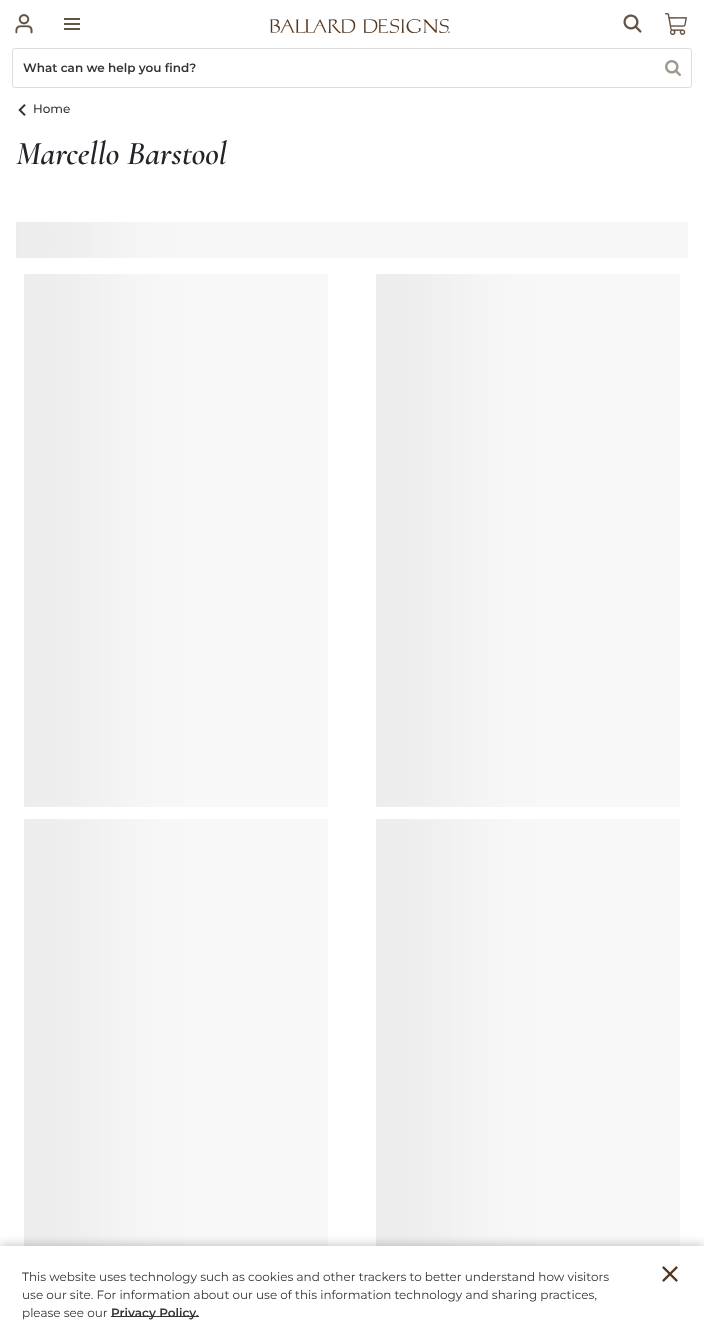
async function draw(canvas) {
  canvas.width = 704
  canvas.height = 1344
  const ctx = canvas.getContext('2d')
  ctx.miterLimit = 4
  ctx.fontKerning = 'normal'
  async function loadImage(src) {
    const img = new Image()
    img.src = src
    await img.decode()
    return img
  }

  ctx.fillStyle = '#fff'
  ctx.fillRect(0, 0, 704, 1344)
  ctx.fillStyle = '#f7f7f7'
  ctx.fillRect(17, 222, 671, 36)
  ctx.save()
  ctx.beginPath()
  ctx.rect(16, 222, 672, 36)
  ctx.clip()
  ctx.fillStyle = '#0000000d'
  ctx.filter = 'blur(50px)'
  ctx.beginPath()
  ctx.rect(-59, 147, 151, 186)
  ctx.fill()
  ctx.filter = 'none'
  ctx.restore()
  ctx.drawImage(await loadImage('image0.png'), 15, 14, 18, 20)
  ctx.drawImage(await loadImage('image1.png'), 270, 19, 180, 14)
  ctx.drawImage(await loadImage('image2.png'), 665, 13, 22, 22)
  ctx.drawImage(await loadImage('image3.png'), 64, 18, 16, 12)
  ctx.drawImage(await loadImage('image4.png'), 623, 14, 19, 19)
  ctx.fillStyle = '#ebebeb'
  ctx.fillRect(16, 222, 1, 36)
  ctx.fillStyle = '#f8f8f8'
  ctx.fillRect(25, 274, 303, 533)
  ctx.save()
  ctx.beginPath()
  ctx.rect(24, 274, 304, 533)
  ctx.clip()
  ctx.fillStyle = '#0000000d'
  ctx.filter = 'blur(50px)'
  ctx.beginPath()
  ctx.rect(-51, 199, 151, 683)
  ctx.fill()
  ctx.filter = 'none'
  ctx.restore()
  ctx.fillRect(377, 274, 303, 533)
  ctx.save()
  ctx.beginPath()
  ctx.rect(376, 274, 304, 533)
  ctx.clip()
  ctx.fillStyle = '#0000000d'
  ctx.filter = 'blur(50px)'
  ctx.beginPath()
  ctx.rect(301, 199, 151, 683)
  ctx.fill()
  ctx.filter = 'none'
  ctx.restore()
  ctx.beginPath()
  ctx.roundRect(12.5, 48.5, 679, 39, 2.5)
  ctx.strokeStyle = '#ddd'
  ctx.stroke()
  ctx.font = '600 12px Montserrat'
  ctx.fillStyle = '#333'
  ctx.fillText('What can we help you find?', 23, 72)
  ctx.drawImage(await loadImage('image5.png'), 665, 60, 16, 16)
  ctx.drawImage(await loadImage('image6.png'), 18, 104, 8, 12)
  ctx.font = '500 12px Montserrat'
  ctx.fillText('Home', 33, 113)
  ctx.fillStyle = '#ececec'
  ctx.fillRect(24, 274, 1, 533)
  ctx.fillRect(376, 274, 1, 533)
  ctx.fillStyle = '#f8f8f8'
  ctx.fillRect(25, 819, 303, 427)
  ctx.save()
  ctx.beginPath()
  ctx.rect(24, 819, 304, 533)
  ctx.clip()
  ctx.fillStyle = '#0000000d'
  ctx.filter = 'blur(50px)'
  ctx.beginPath()
  ctx.rect(-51, 744, 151, 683)
  ctx.fill()
  ctx.filter = 'none'
  ctx.restore()
  ctx.fillStyle = '#ececec'
  ctx.fillRect(24, 819, 1, 427)
  ctx.fillStyle = '#f8f8f8'
  ctx.fillRect(377, 819, 303, 427)
  ctx.save()
  ctx.beginPath()
  ctx.rect(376, 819, 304, 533)
  ctx.clip()
  ctx.fillStyle = '#0000000d'
  ctx.filter = 'blur(50px)'
  ctx.beginPath()
  ctx.rect(301, 744, 151, 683)
  ctx.fill()
  ctx.filter = 'none'
  ctx.restore()
  ctx.fillStyle = '#ececec'
  ctx.fillRect(376, 819, 1, 427)
  ctx.font = 'italic 600 33.25px Cormorant'
  ctx.fillStyle = '#212529'
  ctx.fillText('Marcello Barstool', 16, 164)
  ctx.fillStyle = '#00000033'
  ctx.filter = 'blur(5px)'
  ctx.beginPath()
  ctx.rect(0, 1244, 704, 98)
  ctx.fill()
  ctx.filter = 'none'
  ctx.fillStyle = '#fff'
  ctx.fillRect(0, 1246, 704, 98)
  ctx.font = '12px Montserrat'
  ctx.fillStyle = '#333'
  ctx.fillText('This website uses technology such as cookies and other trackers to better understand how visitors', 22, 1281)
  ctx.fillText('use our site. For information about our use of this information technology and sharing practices,', 22, 1299)
  ctx.fillText('please see our', 22, 1317)
  ctx.fillRect(111, 1316, 88, 1)
  ctx.font = '600 12px Montserrat'
  ctx.fillText('Privacy Policy.', 111, 1317)
  ctx.drawImage(await loadImage('image7.png'), 662, 1266, 16, 16)
}

draw(document.querySelector('canvas'))
